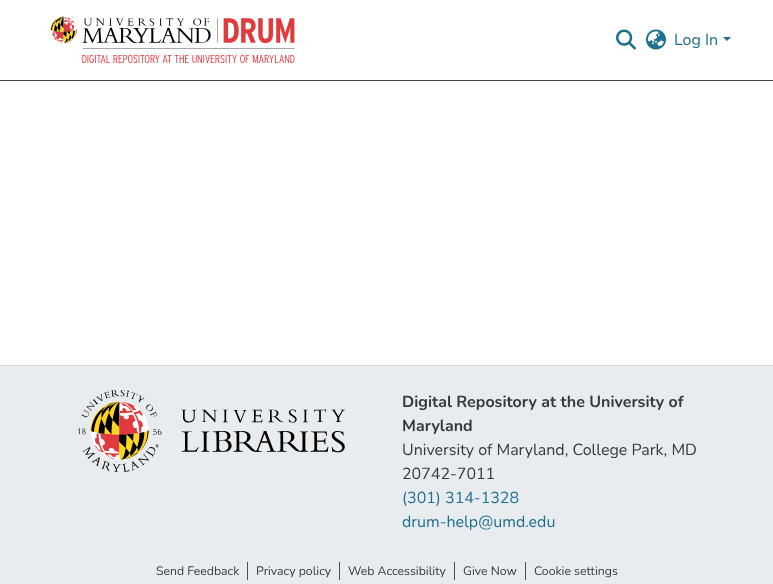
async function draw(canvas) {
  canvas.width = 773
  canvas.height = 584
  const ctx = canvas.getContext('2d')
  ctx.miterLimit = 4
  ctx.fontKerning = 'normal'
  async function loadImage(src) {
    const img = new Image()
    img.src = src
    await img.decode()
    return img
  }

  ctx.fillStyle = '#fff'
  ctx.fillRect(0, 0, 773, 584)
  ctx.fillStyle = '#454545'
  ctx.fillRect(0, 80, 773, 1)
  ctx.drawImage(await loadImage('image0.png'), 50, 16, 245, 47)
  ctx.drawImage(await loadImage('image1.png'), 616, 29, 20, 21)
  ctx.drawImage(await loadImage('image2.png'), 646, 29, 20, 21)
  ctx.font = '16px Nunito'
  ctx.fillStyle = '#1e6f90'
  ctx.fillText('Log In', 674, 45)
  ctx.beginPath()
  ctx.moveTo(723, 37)
  ctx.lineTo(731, 37)
  ctx.lineTo(727, 41)
  ctx.closePath()
  ctx.fill()
  ctx.fillStyle = '#e9ecef'
  ctx.fillRect(0, 366, 773, 218)
  ctx.fillStyle = '#ced4da'
  ctx.fillRect(0, 365, 773, 1)
  ctx.drawImage(await loadImage('image3.png'), 77, 390, 268, 82)
  ctx.font = 'bold 16px Nunito'
  ctx.fillStyle = '#343a40'
  ctx.fillText('Digital Repository at the University of', 402, 407)
  ctx.fillText('Maryland', 402, 431)
  ctx.font = '16px Nunito'
  ctx.fillText('University of Maryland, College Park, MD', 402, 455)
  ctx.fillText('20742-7011', 402, 479)
  ctx.fillStyle = '#1e6f90'
  ctx.fillText('(301) 314-1328', 402, 503)
  ctx.fillText('drum-help@umd.edu', 402, 527)
  ctx.font = '12.25px Nunito'
  ctx.fillStyle = '#343a40'
  ctx.fillText('Send Feedback', 156, 575)
  ctx.fillStyle = '#495057'
  ctx.fillRect(247, 562, 1, 18)
  ctx.fillStyle = '#343a40'
  ctx.fillText('Privacy policy', 256, 575)
  ctx.fillStyle = '#495057'
  ctx.fillRect(339, 562, 1, 18)
  ctx.fillStyle = '#343a40'
  ctx.fillText('Web Accessibility', 348, 575)
  ctx.fillStyle = '#495057'
  ctx.fillRect(454, 562, 1, 18)
  ctx.fillStyle = '#343a40'
  ctx.fillText('Give Now', 463, 575)
  ctx.fillStyle = '#495057'
  ctx.fillRect(525, 562, 1, 18)
  ctx.fillStyle = '#343a40'
  ctx.fillText('Cookie settings', 534, 575)
}

draw(document.querySelector('canvas'))
